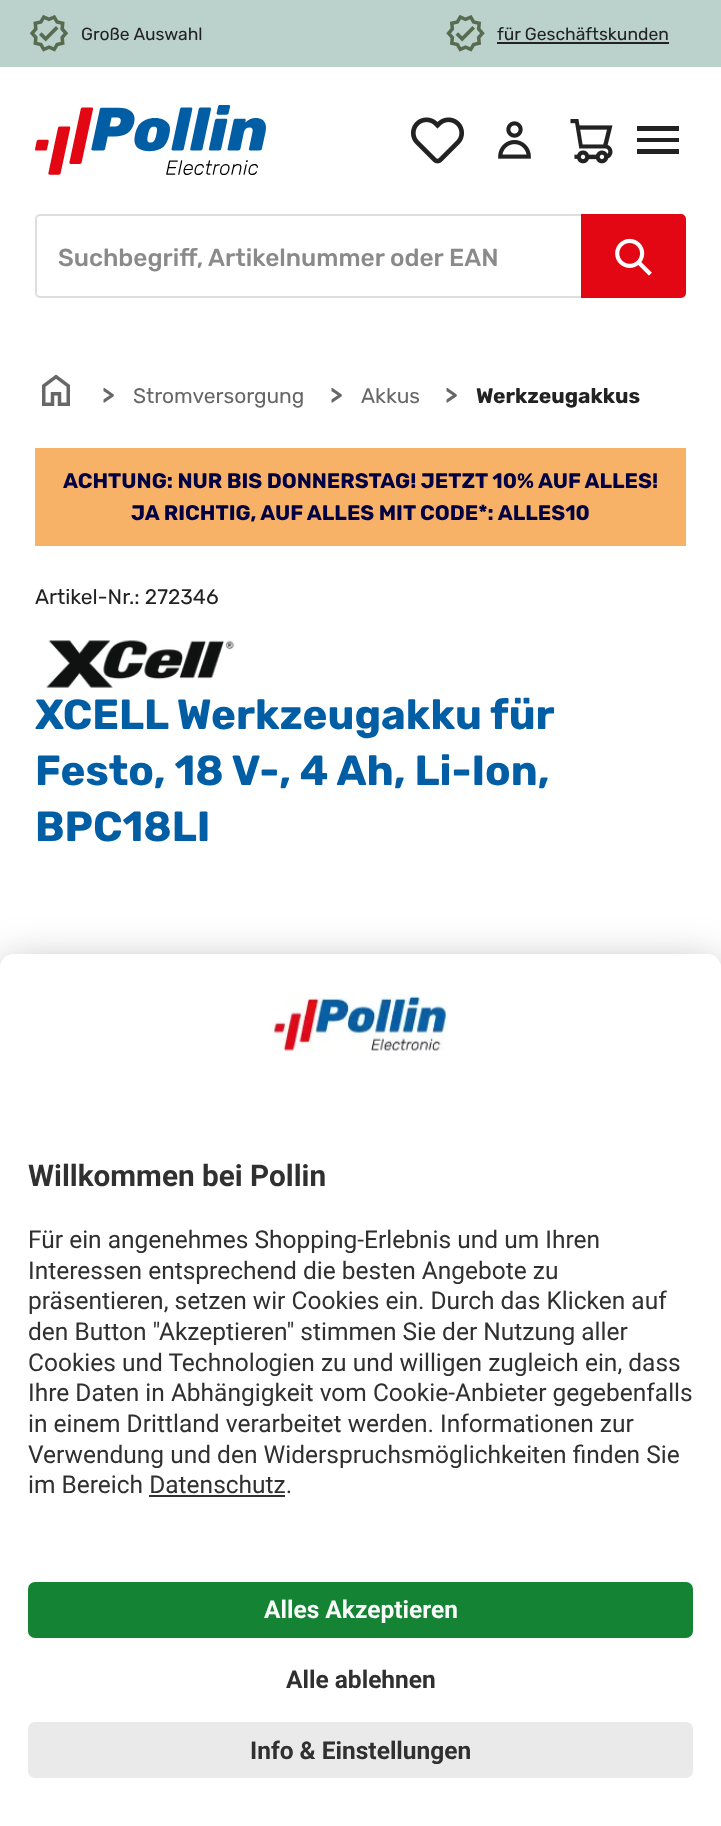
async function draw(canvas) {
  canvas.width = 721
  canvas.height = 1826
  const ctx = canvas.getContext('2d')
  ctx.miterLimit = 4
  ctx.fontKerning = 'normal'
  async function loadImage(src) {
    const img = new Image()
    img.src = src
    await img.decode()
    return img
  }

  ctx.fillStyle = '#fff'
  ctx.fillRect(0, 0, 721, 1826)
  ctx.fillStyle = '#bbd1cb'
  ctx.fillRect(0, 0, 721, 67)
  ctx.drawImage(await loadImage('image0.png'), 29, 15, 40, 37)
  ctx.font = '17.5px Rubik'
  ctx.fillStyle = '#222'
  ctx.fillText('Große Auswahl', 81, 40)
  ctx.drawImage(await loadImage('image1.png'), 446, 15, 39, 37)
  ctx.fillText('für Geschäftskunden', 497, 40)
  ctx.fillRect(497, 42, 172, 2)
  ctx.drawImage(await loadImage('image2.png'), 35, 105, 231, 70)
  ctx.drawImage(await loadImage('image3.png'), 411, 117, 53, 47)
  ctx.drawImage(await loadImage('image4.png'), 498, 121, 33, 38)
  ctx.drawImage(await loadImage('image5.png'), 570, 119, 43, 45)
  ctx.beginPath()
  ctx.moveTo(637, 154)
  ctx.lineTo(637, 149)
  ctx.lineTo(679, 149)
  ctx.lineTo(679, 154)
  ctx.closePath()
  ctx.moveTo(637, 142)
  ctx.lineTo(637, 138)
  ctx.lineTo(679, 138)
  ctx.lineTo(679, 142)
  ctx.closePath()
  ctx.moveTo(637, 131)
  ctx.lineTo(637, 126)
  ctx.lineTo(679, 126)
  ctx.lineTo(679, 131)
  ctx.closePath()
  ctx.fill()
  ctx.beginPath()
  ctx.roundRect(36, 215, 546, 82, [4, 0, 0, 4])
  ctx.strokeStyle = '#dedede'
  ctx.lineWidth = 2
  ctx.stroke()
  ctx.font = '500 24.5px Rubik'
  ctx.fillStyle = '#8a8a8a'
  ctx.fillText('Suchbegriff, Artikelnummer oder EAN', 58, 266)
  ctx.fillStyle = '#e30613'
  ctx.beginPath()
  ctx.roundRect(582, 215, 103, 82, [0, 4, 4, 0])
  ctx.fill()
  ctx.strokeStyle = '#e30613'
  ctx.stroke()
  ctx.drawImage(await loadImage('image6.png'), 615, 238, 37, 38)
  ctx.drawImage(await loadImage('image7.png'), 42, 374, 28, 32)
  ctx.letterSpacing = '-4px'
  ctx.font = '600 24.5px Rubik'
  ctx.fillStyle = '#676767'
  ctx.fillText('>', 102, 403)
  ctx.letterSpacing = '0px'
  ctx.font = '21px Rubik'
  ctx.fillText('Stromversorgung', 133, 403)
  ctx.letterSpacing = '-4px'
  ctx.font = '600 24.5px Rubik'
  ctx.fillText('>', 330, 403)
  ctx.letterSpacing = '0px'
  ctx.font = '21px Rubik'
  ctx.fillText('Akkus', 361, 403)
  ctx.letterSpacing = '-4px'
  ctx.font = '600 24.5px Rubik'
  ctx.fillText('>', 445, 403)
  ctx.letterSpacing = '0px'
  ctx.font = 'bold 21px Rubik'
  ctx.fillStyle = '#222'
  ctx.fillText('Werkzeugakkus', 476, 403)
  ctx.fillStyle = '#f7b267'
  ctx.fillRect(35, 448, 651, 98)
  ctx.fillStyle = '#010044'
  ctx.fillText('ACHTUNG: NUR BIS DONNERSTAG! JETZT 10% AUF ALLES!', 63, 488)
  ctx.fillText('JA RICHTIG, AUF ALLES MIT CODE*: ALLES10', 131, 520)
  ctx.font = '21px Rubik'
  ctx.fillStyle = '#222'
  ctx.fillText('Artikel-Nr.: 272346', 35, 604)
  ctx.drawImage(await loadImage('image8.png'), 46, 640, 189, 48)
  ctx.font = 'bold 42px Rubik'
  ctx.fillStyle = '#025ea4'
  ctx.fillText('XCELL Werkzeugakku für', 35, 729)
  ctx.fillText('Festo, 18 V-, 4 Ah, Li-Ion,', 35, 785)
  ctx.fillText('BPC18LI', 35, 841)
  ctx.fillStyle = '#0000004d'
  ctx.filter = 'blur(24.5px)'
  ctx.beginPath()
  ctx.roundRect(0, 989, 721, 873, 14)
  ctx.fill()
  ctx.filter = 'none'
  ctx.fillStyle = '#00000038'
  ctx.filter = 'blur(23px)'
  ctx.beginPath()
  ctx.roundRect(0, 963, 721, 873, 14)
  ctx.fill()
  ctx.filter = 'none'
  ctx.fillStyle = '#fff'
  ctx.beginPath()
  ctx.moveTo(14, 954)
  ctx.lineTo(707, 954)
  ctx.bezierCurveTo(714.5, 954, 721, 960.5, 721, 968)
  ctx.lineTo(721, 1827)
  ctx.lineTo(0, 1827)
  ctx.lineTo(0, 968)
  ctx.bezierCurveTo(0, 960.5, 6.5, 954, 14, 954)
  ctx.closePath()
  ctx.fill()
  ctx.beginPath()
  ctx.roundRect(0, 954, 721, 607, [14, 14, 0, 0])
  ctx.fill()
  ctx.drawImage(await loadImage('image9.png'), 271, 996, 177, 55)
  ctx.font = 'bold 29.75px Roboto'
  ctx.fillStyle = '#303030'
  ctx.fillText('Willkommen bei Pollin', 28, 1186)
  ctx.font = '24.5px Roboto'
  ctx.fillText('Für ein angenehmes Shopping-Erlebnis und um Ihren', 28, 1248)
  ctx.fillText('Interessen entsprechend die besten Angebote zu', 28, 1279)
  ctx.fillText('präsentieren, setzen wir Cookies ein. Durch das Klicken auf', 28, 1309)
  ctx.fillText('den Button "Akzeptieren" stimmen Sie der Nutzung aller', 28, 1340)
  ctx.fillText('Cookies und Technologien zu und willigen zugleich ein, dass', 28, 1371)
  ctx.fillText('Ihre Daten in Abhängigkeit vom Cookie-Anbieter gegebenfalls', 28, 1401)
  ctx.fillText('in einem Drittland verarbeitet werden. Informationen zur', 28, 1432)
  ctx.fillText('Verwendung und den Widerspruchsmöglichkeiten finden Sie', 28, 1463)
  ctx.fillText('im Bereich Datenschutz.', 28, 1493)
  ctx.fillRect(149, 1495, 136, 2)
  ctx.fillStyle = '#148333'
  ctx.beginPath()
  ctx.roundRect(28, 1582, 665, 56, 7)
  ctx.fill()
  ctx.font = 'bold 24.5px Roboto'
  ctx.fillStyle = '#fafafa'
  ctx.fillText('Alles Akzeptieren', 264, 1618)
  ctx.fillStyle = '#303030'
  ctx.fillText('Alle ablehnen', 286, 1688)
  ctx.fillStyle = '#eaeaea'
  ctx.beginPath()
  ctx.roundRect(28, 1722, 665, 56, 7)
  ctx.fill()
  ctx.fillStyle = '#303030'
  ctx.fillText('Info & Einstellungen', 250, 1759)
}

draw(document.querySelector('canvas'))
